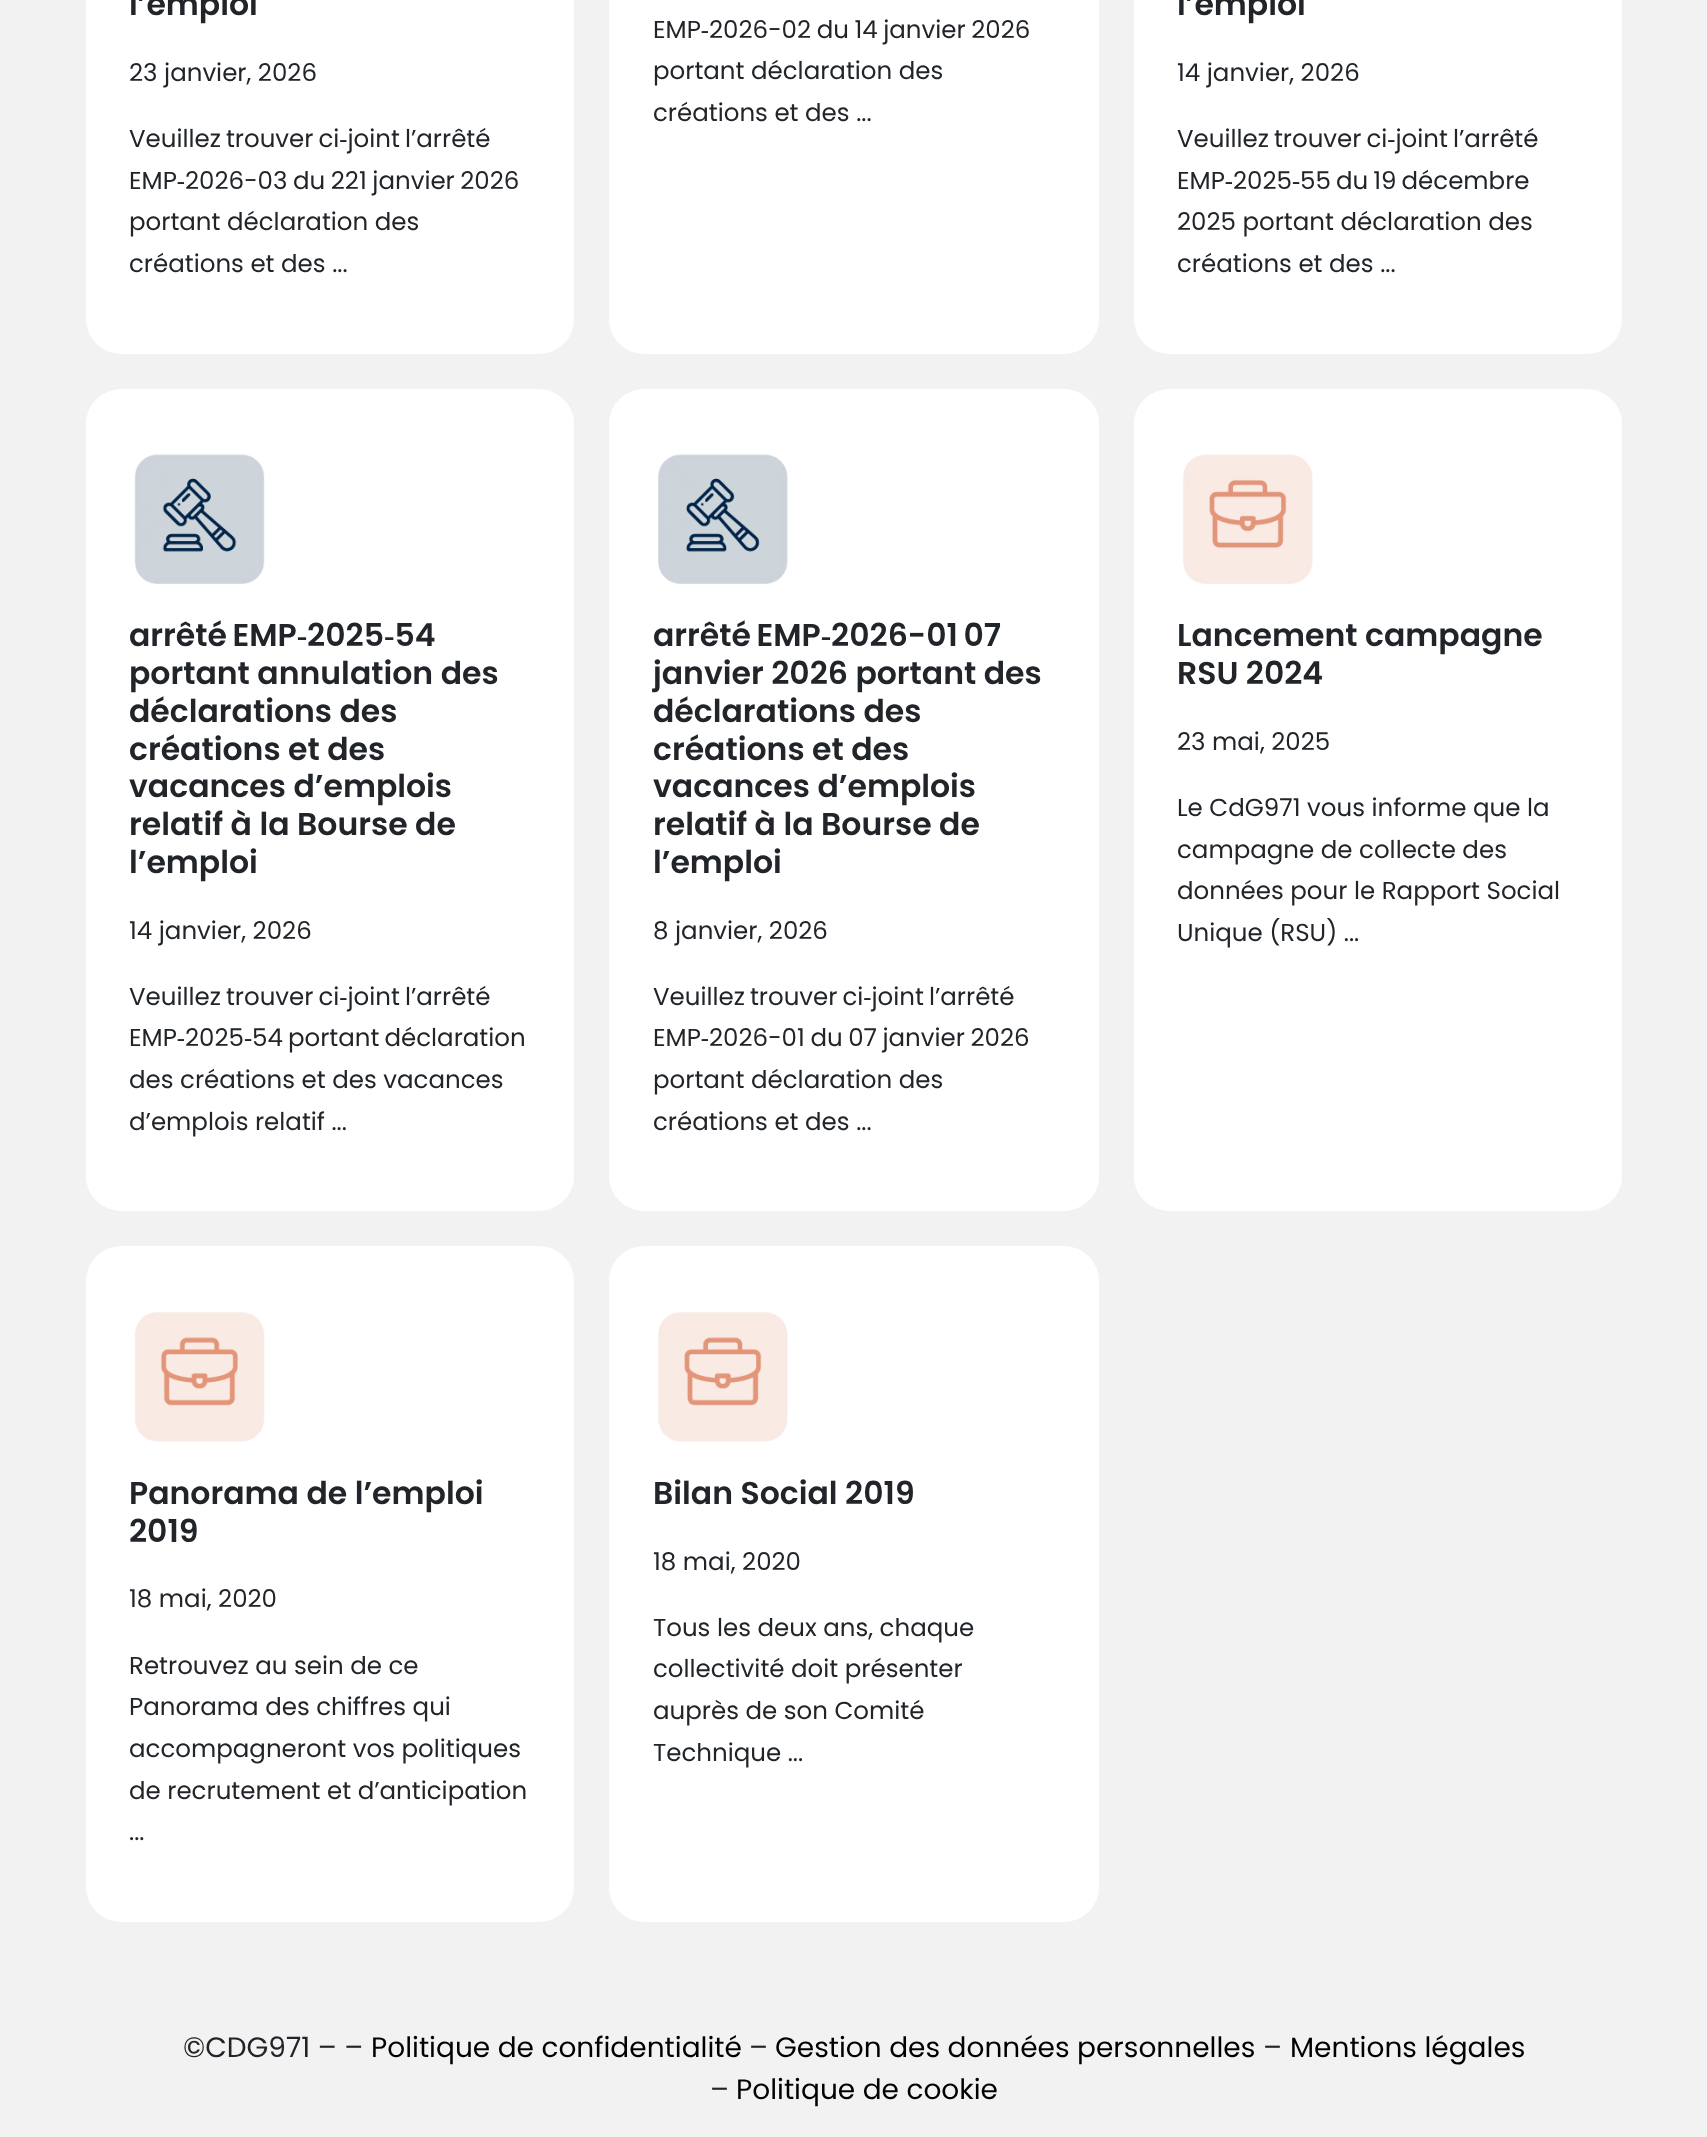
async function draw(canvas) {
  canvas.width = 1707
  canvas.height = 2137
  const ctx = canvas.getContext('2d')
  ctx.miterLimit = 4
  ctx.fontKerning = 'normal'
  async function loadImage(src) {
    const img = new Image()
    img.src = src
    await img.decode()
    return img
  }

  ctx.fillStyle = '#f2f2f2'
  ctx.fillRect(0, 0, 1707, 2137)
  ctx.fillStyle = '#fff'
  ctx.beginPath()
  ctx.roundRect(86, -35, 488, 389, 35)
  ctx.fill()
  ctx.font = '600 31.5px Poppins'
  ctx.fillStyle = '#212529'
  ctx.fillText('l’emploi', 129, 15)
  ctx.font = '24.5px Poppins'
  ctx.fillText('23 janvier, 2026', 129, 81)
  ctx.wordSpacing = '-1.5px'
  ctx.fillText('Veuillez trouver ci‑joint l’arrêté', 129, 147)
  ctx.wordSpacing = '-1px'
  ctx.fillText('EMP‑2026-03 du 221 janvier 2026', 129, 189)
  ctx.wordSpacing = '0px'
  ctx.fillText('portant déclaration des', 129, 230)
  ctx.fillText('créations et des ...', 129, 272)
  ctx.fillStyle = '#fff'
  ctx.beginPath()
  ctx.roundRect(609, -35, 490, 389, 35)
  ctx.fill()
  ctx.wordSpacing = '-1px'
  ctx.fillStyle = '#212529'
  ctx.fillText('EMP‑2026-02 du 14 janvier 2026', 653, 38)
  ctx.wordSpacing = '0px'
  ctx.fillText('portant déclaration des', 653, 79)
  ctx.fillText('créations et des ...', 653, 121)
  ctx.fillStyle = '#fff'
  ctx.beginPath()
  ctx.roundRect(1134, -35, 488, 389, 35)
  ctx.fill()
  ctx.font = '600 31.5px Poppins'
  ctx.fillStyle = '#212529'
  ctx.fillText('l’emploi', 1177, 15)
  ctx.font = '24.5px Poppins'
  ctx.fillText('14 janvier, 2026', 1177, 81)
  ctx.wordSpacing = '-1.5px'
  ctx.fillText('Veuillez trouver ci‑joint l’arrêté', 1177, 147)
  ctx.fillText('EMP‑2025‑55 du 19 décembre', 1177, 189)
  ctx.wordSpacing = '0px'
  ctx.fillText('2025 portant déclaration des', 1177, 230)
  ctx.fillText('créations et des ...', 1177, 272)
  ctx.fillStyle = '#fff'
  ctx.beginPath()
  ctx.roundRect(86, 389, 488, 822, 35)
  ctx.fill()
  ctx.drawImage(await loadImage('image0.png'), 134, 454, 131, 130)
  ctx.wordSpacing = '-2px'
  ctx.font = '600 31.5px Poppins'
  ctx.fillStyle = '#212529'
  ctx.fillText('arrêté EMP‑2025‑54', 129, 646)
  ctx.wordSpacing = '0px'
  ctx.fillText('portant annulation des', 129, 684)
  ctx.fillText('déclarations des', 129, 722)
  ctx.fillText('créations et des', 129, 760)
  ctx.fillText('vacances d’emplois', 129, 797)
  ctx.fillText('relatif à la Bourse de', 129, 835)
  ctx.fillText('l’emploi', 129, 873)
  ctx.font = '24.5px Poppins'
  ctx.fillText('14 janvier, 2026', 129, 939)
  ctx.wordSpacing = '-1.5px'
  ctx.fillText('Veuillez trouver ci‑joint l’arrêté', 129, 1005)
  ctx.fillText('EMP‑2025‑54 portant déclaration', 129, 1046)
  ctx.wordSpacing = '0px'
  ctx.fillText('des créations et des vacances', 129, 1088)
  ctx.fillText('d’emplois relatif ...', 129, 1130)
  ctx.fillStyle = '#fff'
  ctx.beginPath()
  ctx.roundRect(609, 389, 490, 822, 35)
  ctx.fill()
  ctx.drawImage(await loadImage('image1.png'), 658, 454, 130, 130)
  ctx.wordSpacing = '-2px'
  ctx.font = '600 31.5px Poppins'
  ctx.fillStyle = '#212529'
  ctx.fillText('arrêté EMP‑2026-01 07', 653, 646)
  ctx.wordSpacing = '0px'
  ctx.fillText('janvier 2026 portant des', 653, 684)
  ctx.fillText('déclarations des', 653, 722)
  ctx.fillText('créations et des', 653, 760)
  ctx.fillText('vacances d’emplois', 653, 797)
  ctx.fillText('relatif à la Bourse de', 653, 835)
  ctx.fillText('l’emploi', 653, 873)
  ctx.font = '24.5px Poppins'
  ctx.fillText('8 janvier, 2026', 653, 939)
  ctx.wordSpacing = '-1.5px'
  ctx.fillText('Veuillez trouver ci‑joint l’arrêté', 653, 1005)
  ctx.wordSpacing = '-1px'
  ctx.fillText('EMP‑2026-01 du 07 janvier 2026', 653, 1046)
  ctx.wordSpacing = '0px'
  ctx.fillText('portant déclaration des', 653, 1088)
  ctx.fillText('créations et des ...', 653, 1130)
  ctx.fillStyle = '#fff'
  ctx.beginPath()
  ctx.roundRect(1134, 389, 488, 822, 35)
  ctx.fill()
  ctx.drawImage(await loadImage('image2.png'), 1183, 454, 130, 130)
  ctx.font = '600 31.5px Poppins'
  ctx.fillStyle = '#212529'
  ctx.fillText('Lancement campagne', 1177, 646)
  ctx.fillText('RSU 2024', 1177, 684)
  ctx.font = '24.5px Poppins'
  ctx.fillText('23 mai, 2025', 1177, 750)
  ctx.fillText('Le CdG971 vous informe que la', 1177, 816)
  ctx.fillText('campagne de collecte des', 1177, 858)
  ctx.fillText('données pour le Rapport Social', 1177, 899)
  ctx.fillText('Unique (RSU) ...', 1177, 941)
  ctx.fillStyle = '#fff'
  ctx.beginPath()
  ctx.roundRect(86, 1246, 488, 676, 35)
  ctx.fill()
  ctx.drawImage(await loadImage('image3.png'), 134, 1312, 131, 130)
  ctx.font = '600 31.5px Poppins'
  ctx.fillStyle = '#212529'
  ctx.fillText('Panorama de l’emploi', 129, 1504)
  ctx.fillText('2019', 129, 1542)
  ctx.font = '24.5px Poppins'
  ctx.fillText('18 mai, 2020', 129, 1607)
  ctx.fillText('Retrouvez au sein de ce', 129, 1674)
  ctx.fillText('Panorama des chiffres qui', 129, 1715)
  ctx.fillText('accompagneront vos politiques', 129, 1757)
  ctx.fillText('de recrutement et d’anticipation', 129, 1799)
  ctx.fillText('...', 129, 1840)
  ctx.fillStyle = '#fff'
  ctx.beginPath()
  ctx.roundRect(609, 1246, 490, 676, 35)
  ctx.fill()
  ctx.drawImage(await loadImage('image4.png'), 658, 1312, 130, 130)
  ctx.font = '600 31.5px Poppins'
  ctx.fillStyle = '#212529'
  ctx.fillText('Bilan Social 2019', 653, 1504)
  ctx.font = '24.5px Poppins'
  ctx.fillText('18 mai, 2020', 653, 1570)
  ctx.fillText('Tous les deux ans, chaque', 653, 1636)
  ctx.fillText('collectivité doit présenter', 653, 1677)
  ctx.fillText('auprès de son Comité', 653, 1719)
  ctx.fillText('Technique ...', 653, 1761)
  ctx.font = '28px Poppins'
  ctx.fillText('©CDG971 – –', 183, 2057)
  ctx.fillStyle = '#000'
  ctx.fillText('Politique de confidentialité', 371, 2057)
  ctx.fillStyle = '#212529'
  ctx.fillText('–', 749, 2057)
  ctx.fillStyle = '#000'
  ctx.fillText('Gestion des données personnelles', 775, 2057)
  ctx.fillStyle = '#212529'
  ctx.fillText('–', 1263, 2057)
  ctx.fillStyle = '#000'
  ctx.fillText('Mentions légales', 1290, 2057)
  ctx.fillStyle = '#212529'
  ctx.fillText('–', 710, 2099)
  ctx.fillStyle = '#000'
  ctx.fillText('Politique de cookie', 736, 2099)
}

draw(document.querySelector('canvas'))
